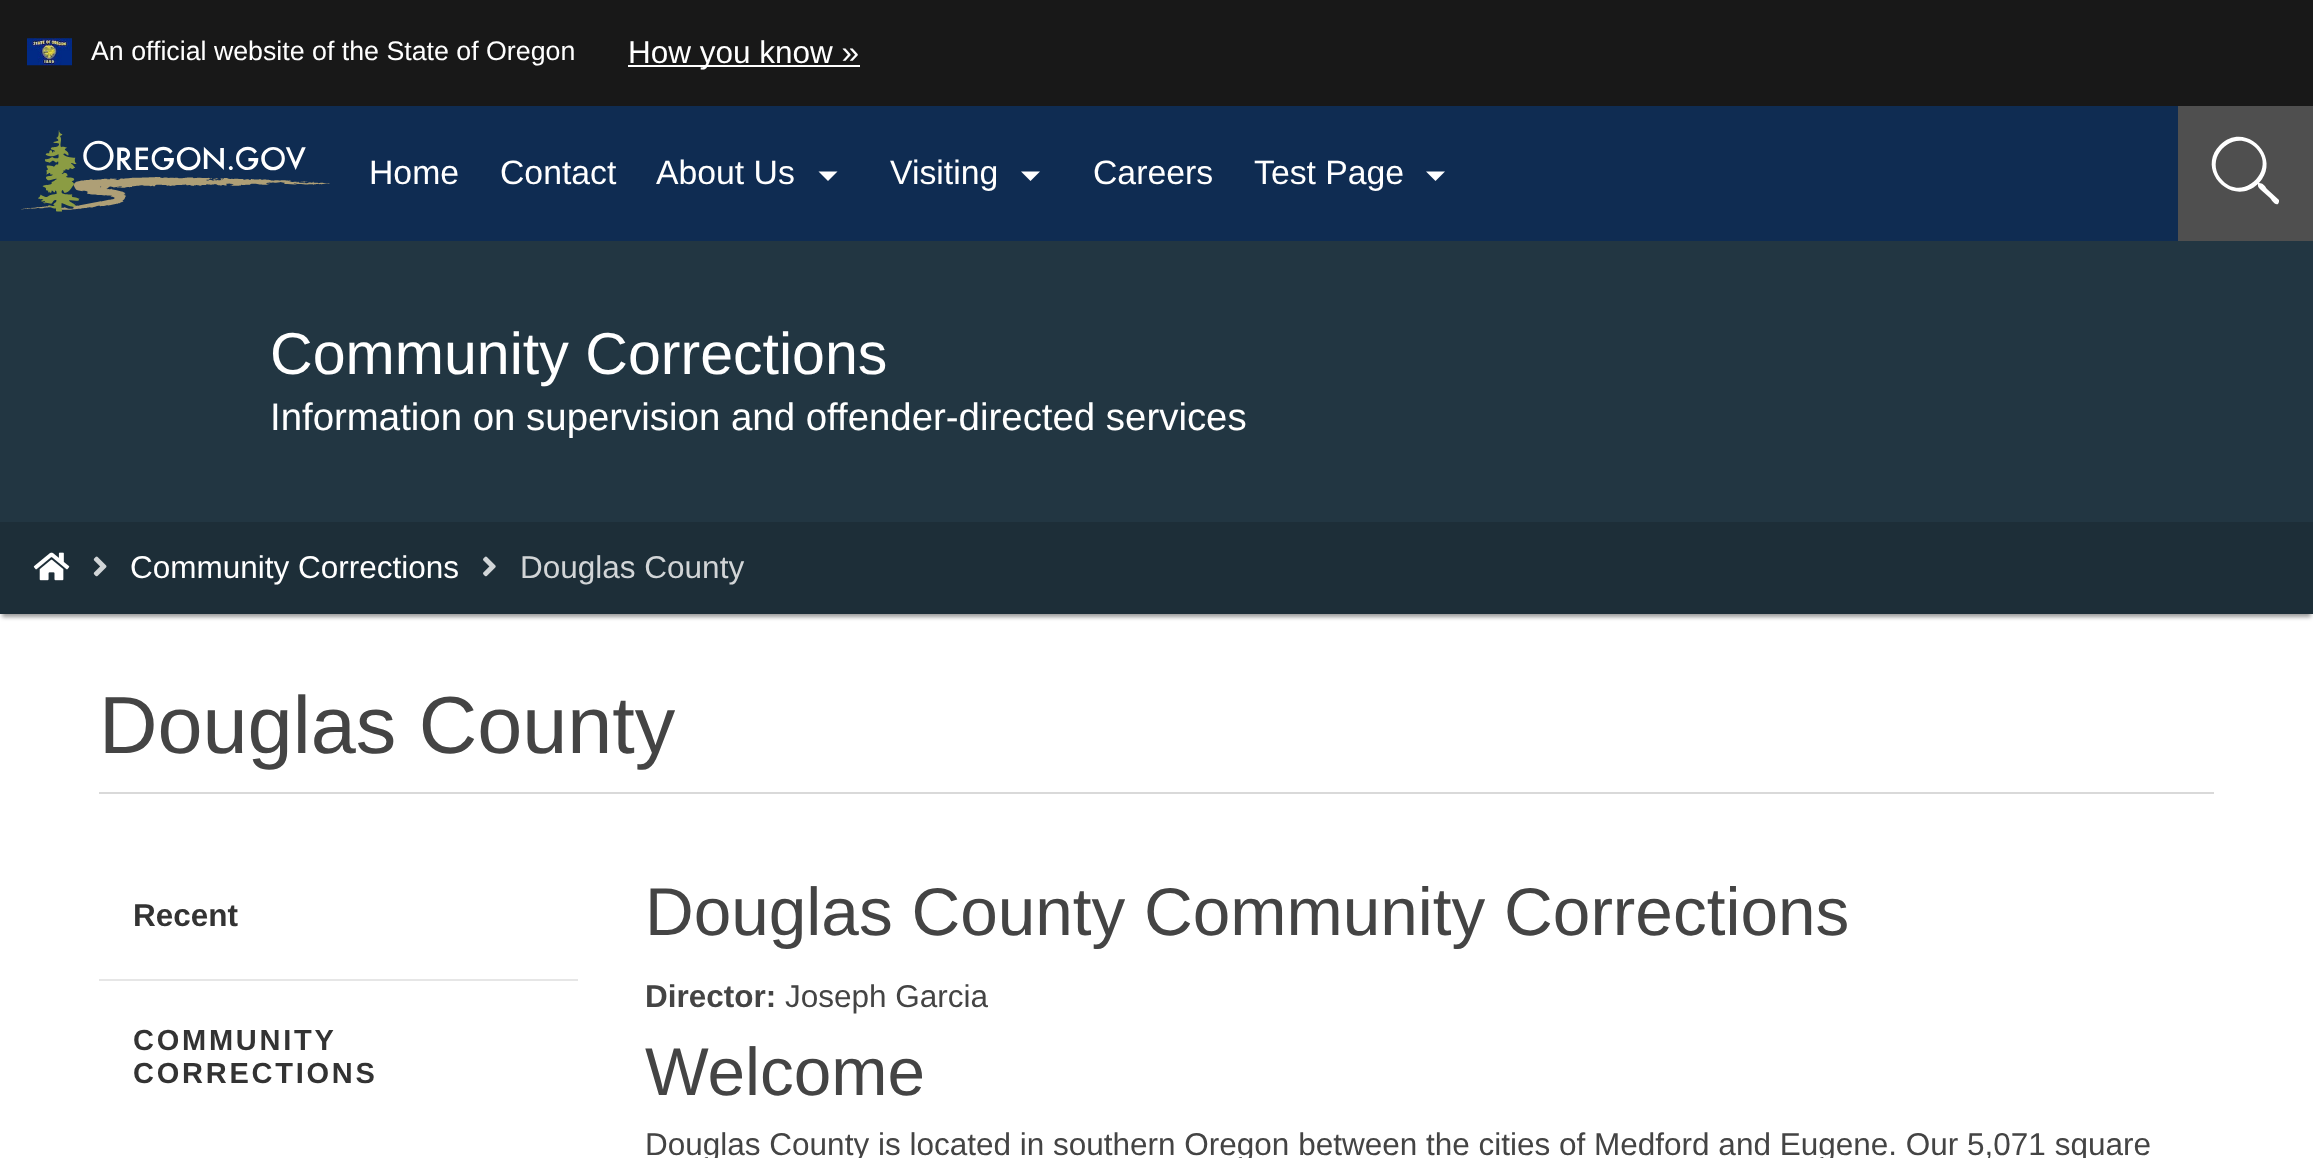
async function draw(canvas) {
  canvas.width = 2313
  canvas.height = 1158
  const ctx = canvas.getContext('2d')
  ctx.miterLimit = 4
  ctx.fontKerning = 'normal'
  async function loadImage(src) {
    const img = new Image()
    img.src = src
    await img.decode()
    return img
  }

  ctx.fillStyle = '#fff'
  ctx.fillRect(0, 0, 2313, 1158)
  ctx.fillStyle = '#181818'
  ctx.fillRect(0, 0, 2313, 106)
  ctx.drawImage(await loadImage('image0.png'), 27, 38, 45, 28)
  ctx.font = '26.75px Liberation Sans'
  ctx.fillStyle = '#fff'
  ctx.fillText('An official website of the State of Oregon', 91, 60)
  ctx.fillRect(628, 65, 232, 2)
  ctx.font = '31.5px Liberation Sans'
  ctx.fillText('How you know »', 628, 63)
  ctx.fillStyle = '#0f2c52'
  ctx.fillRect(0, 106, 2178, 135)
  ctx.drawImage(await loadImage('image1.png'), 21, 130, 309, 82)
  ctx.font = '33.75px Liberation Sans'
  ctx.fillStyle = '#fff'
  ctx.fillText('Home', 369, 184)
  ctx.fillText('Contact', 500, 184)
  ctx.fillText('About Us', 656, 184)
  ctx.beginPath()
  ctx.moveTo(818.5, 171.5)
  ctx.lineTo(837.5, 171.5)
  ctx.lineTo(828, 181)
  ctx.closePath()
  ctx.fill()
  ctx.fillText('Visiting', 890, 184)
  ctx.beginPath()
  ctx.moveTo(1021, 171.5)
  ctx.lineTo(1040, 171.5)
  ctx.lineTo(1030.5, 181)
  ctx.closePath()
  ctx.fill()
  ctx.fillText('Careers', 1093, 184)
  ctx.fillText('Test Page', 1254, 184)
  ctx.beginPath()
  ctx.moveTo(1426, 171.5)
  ctx.lineTo(1445, 171.5)
  ctx.lineTo(1435.5, 181)
  ctx.closePath()
  ctx.fill()
  ctx.fillStyle = '#4f4f4f'
  ctx.fillRect(2178, 106, 135, 135)
  ctx.fillStyle = '#fff'
  ctx.beginPath()
  ctx.moveTo(2279, 200)
  ctx.lineTo(2279, 202)
  ctx.lineTo(2278, 204)
  ctx.bezierCurveTo(2275, 206, 2271, 199, 2270, 198)
  ctx.lineTo(2261, 190)
  ctx.bezierCurveTo(2258, 187, 2258, 187, 2258, 184)
  ctx.bezierCurveTo(2232, 208, 2195, 170, 2220, 145)
  ctx.bezierCurveTo(2245, 120, 2283, 157, 2259, 183)
  ctx.bezierCurveTo(2263, 183, 2265, 186, 2267, 189)
  ctx.closePath()
  ctx.moveTo(2223, 181)
  ctx.bezierCurveTo(2244, 202, 2277, 169, 2256, 148)
  ctx.bezierCurveTo(2234, 126, 2201, 159, 2223, 181)
  ctx.closePath()
  ctx.fill()
  ctx.fillStyle = '#00000066'
  ctx.filter = 'blur(2px)'
  ctx.beginPath()
  ctx.rect(2, 248, 2309, 369)
  ctx.fill()
  ctx.filter = 'none'
  ctx.fillStyle = '#223642'
  ctx.fillRect(0, 241, 2313, 281)
  ctx.font = '59.1px Liberation Sans'
  ctx.fillStyle = '#fff'
  ctx.fillText('Community Corrections', 270, 374)
  ctx.font = '38.4px Liberation Sans'
  ctx.fillText('Information on supervision and offender-directed services', 270, 430)
  ctx.fillStyle = '#1d2e38'
  ctx.fillRect(0, 522, 2313, 92)
  ctx.drawImage(await loadImage('image2.png'), 33, 552, 37, 29)
  ctx.drawImage(await loadImage('image3.png'), 93, 556, 14, 21)
  ctx.font = '31.5px Liberation Sans'
  ctx.fillStyle = '#fff'
  ctx.fillText('Community Corrections', 130, 578)
  ctx.drawImage(await loadImage('image4.png'), 483, 556, 13, 21)
  ctx.fillStyle = '#d2d5d7'
  ctx.fillText('Douglas County', 520, 578)
  ctx.fillStyle = '#d9d9d9'
  ctx.fillRect(99, 792, 2115, 2)
  ctx.font = '81px Liberation Sans'
  ctx.fillStyle = '#444'
  ctx.fillText('Douglas County', 99, 753)
  ctx.font = 'bold 31.5px Liberation Sans'
  ctx.fillStyle = '#333'
  ctx.fillText('Recent', 133, 926)
  ctx.fillStyle = '#e6e6e6'
  ctx.fillRect(99, 979, 479, 2)
  ctx.letterSpacing = '2.75px'
  ctx.font = 'bold 29px Liberation Sans'
  ctx.fillStyle = '#333'
  ctx.fillText('COMMUNITY', 133, 1050)
  ctx.fillText('CORRECTIONS', 133, 1083)
  ctx.letterSpacing = '0px'
  ctx.font = '67.5px Liberation Sans'
  ctx.fillStyle = '#444'
  ctx.fillText('Douglas County Community Corrections', 645, 935)
  ctx.font = 'bold 31.5px Liberation Sans'
  ctx.fillText('Director:', 645, 1007)
  ctx.font = '31.5px Liberation Sans'
  ctx.fillText('Joseph Garcia', 785, 1007)
  ctx.font = '67.5px Liberation Sans'
  ctx.fillText('Welcome', 645, 1095)
  ctx.font = '31.5px Liberation Sans'
  ctx.fillText('Douglas County is located in southern Oregon between the cities of Medford and Eugene. Our 5,071 square', 645, 1155)
}

draw(document.querySelector('canvas'))
